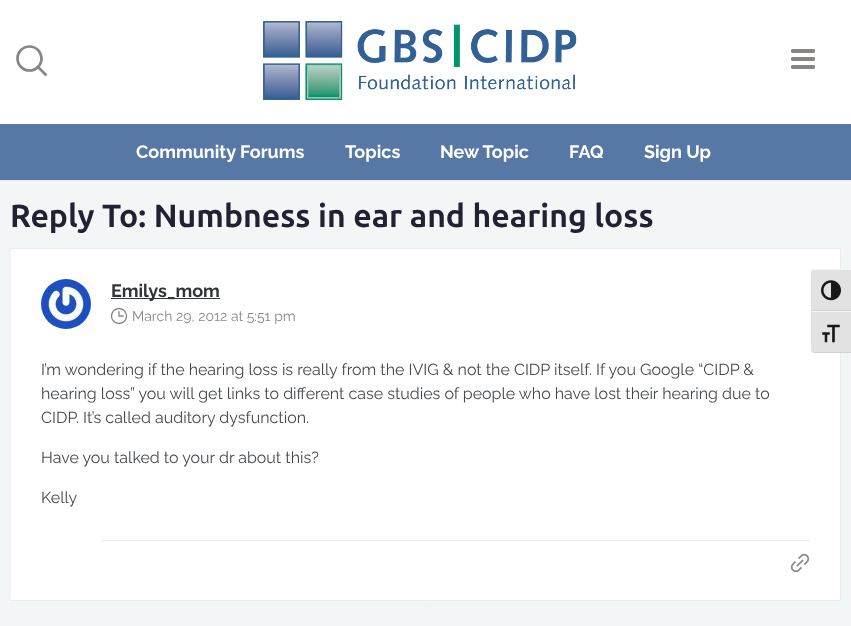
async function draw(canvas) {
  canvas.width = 851
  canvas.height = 626
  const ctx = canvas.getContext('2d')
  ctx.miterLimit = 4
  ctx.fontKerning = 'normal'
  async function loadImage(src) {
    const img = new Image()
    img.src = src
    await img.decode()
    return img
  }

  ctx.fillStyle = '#f2f6f7'
  ctx.fillRect(0, 0, 851, 626)
  ctx.fillStyle = '#fff'
  ctx.fillRect(0, 0, 851, 124)
  ctx.fillStyle = '#ececec'
  ctx.fillRect(0, 180, 851, 1)
  ctx.beginPath()
  ctx.moveTo(45.5, 74.5)
  ctx.lineTo(38, 67)
  ctx.strokeStyle = '#888585'
  ctx.lineWidth = 2.7
  ctx.lineCap = 'square'
  ctx.stroke()
  ctx.beginPath()
  ctx.arc(29.5, 58.5, 12, 0, 2 * Math.PI)
  ctx.stroke()
  ctx.drawImage(await loadImage('image0.png'), 263, 21, 314, 79)
  ctx.drawImage(await loadImage('image1.png'), 791, 49, 24, 20)
  ctx.fillStyle = '#5778a4'
  ctx.fillRect(0, 124, 851, 56)
  ctx.font = 'bold 18px Raleway'
  ctx.fillStyle = '#fff'
  ctx.fillText('Community Forums', 136, 158)
  ctx.fillText('Topics', 345, 158)
  ctx.fillText('New Topic', 440, 158)
  ctx.fillText('FAQ', 569, 158)
  ctx.fillText('Sign Up', 644, 158)
  ctx.font = 'bold 32px Ubuntu'
  ctx.fillStyle = '#222132'
  ctx.fillText('Reply To: Numbness in ear and hearing loss', 10, 227)
  ctx.fillStyle = '#fff'
  ctx.beginPath()
  ctx.rect(10.5, 248.5, 830, 352)
  ctx.fill()
  ctx.strokeStyle = '#ececec'
  ctx.lineWidth = 1
  ctx.stroke()
  ctx.drawImage(await loadImage('image2.png'), 41, 279, 50, 50)
  ctx.fillStyle = '#323538'
  ctx.fillRect(111, 298, 109, 1)
  ctx.font = 'bold 18px Raleway'
  ctx.fillText('Emilys_mom', 111, 297)
  ctx.save()
  ctx.beginPath()
  ctx.rect(111, 308, 16, 16)
  ctx.clip()
  ctx.beginPath()
  ctx.arc(119, 316, 7.5, 0, 2 * Math.PI)
  ctx.strokeStyle = '#86898b'
  ctx.lineWidth = 1.3
  ctx.stroke()
  ctx.restore()
  ctx.beginPath()
  ctx.moveTo(119, 312)
  ctx.lineTo(119, 316)
  ctx.lineTo(123, 316)
  ctx.strokeStyle = '#86898b'
  ctx.lineWidth = 1.3
  ctx.stroke()
  ctx.font = '14px Raleway'
  ctx.fillStyle = '#86898b'
  ctx.fillText('March 29, 2012 at 5:51 pm', 132, 321)
  ctx.font = '16px Raleway'
  ctx.fillStyle = '#45494d'
  ctx.fillText('I’m wondering if the hearing loss is really from the IVIG & not the CIDP itself. If you Google “CIDP &', 41, 375)
  ctx.fillText('hearing loss” you will get links to different case studies of people who have lost their hearing due to', 41, 399)
  ctx.fillText('CIDP. It’s called auditory dysfunction.', 41, 423)
  ctx.fillText('Have you talked to your dr about this?', 41, 463)
  ctx.fillText('Kelly', 41, 503)
  ctx.fillStyle = '#ebebeb'
  ctx.fillRect(101, 540, 709, 1)
  ctx.drawImage(await loadImage('image3.png'), 790, 553, 20, 20)
  ctx.fillStyle = '#e2e2e2'
  ctx.beginPath()
  ctx.roundRect(811, 269, 40, 42, [4, 0, 0, 0])
  ctx.fill()
  ctx.fillStyle = '#f5f5f5'
  ctx.beginPath()
  ctx.moveTo(815, 270)
  ctx.lineTo(851, 270)
  ctx.lineTo(851, 269)
  ctx.lineTo(815, 269)
  ctx.bezierCurveTo(813, 269, 811, 271, 811, 273)
  ctx.bezierCurveTo(811, 271, 813, 270, 815, 270)
  ctx.closePath()
  ctx.fill()
  ctx.fillStyle = '#d2d2d2'
  ctx.fillRect(811, 310, 40, 1)
  ctx.drawImage(await loadImage('image4.png'), 821, 280, 20, 21)
  ctx.fillStyle = '#e2e2e2'
  ctx.beginPath()
  ctx.roundRect(811, 311, 40, 42, [0, 0, 0, 4])
  ctx.fill()
  ctx.fillStyle = '#f5f5f5'
  ctx.fillRect(811, 311, 40, 1)
  ctx.fillStyle = '#d2d2d2'
  ctx.beginPath()
  ctx.moveTo(851, 353)
  ctx.lineTo(851, 352)
  ctx.lineTo(815, 352)
  ctx.bezierCurveTo(813, 352, 811, 351, 811, 349)
  ctx.bezierCurveTo(811, 351, 813, 353, 815, 353)
  ctx.closePath()
  ctx.fill()
  ctx.drawImage(await loadImage('image5.png'), 822, 324, 18, 19)
}

draw(document.querySelector('canvas'))
